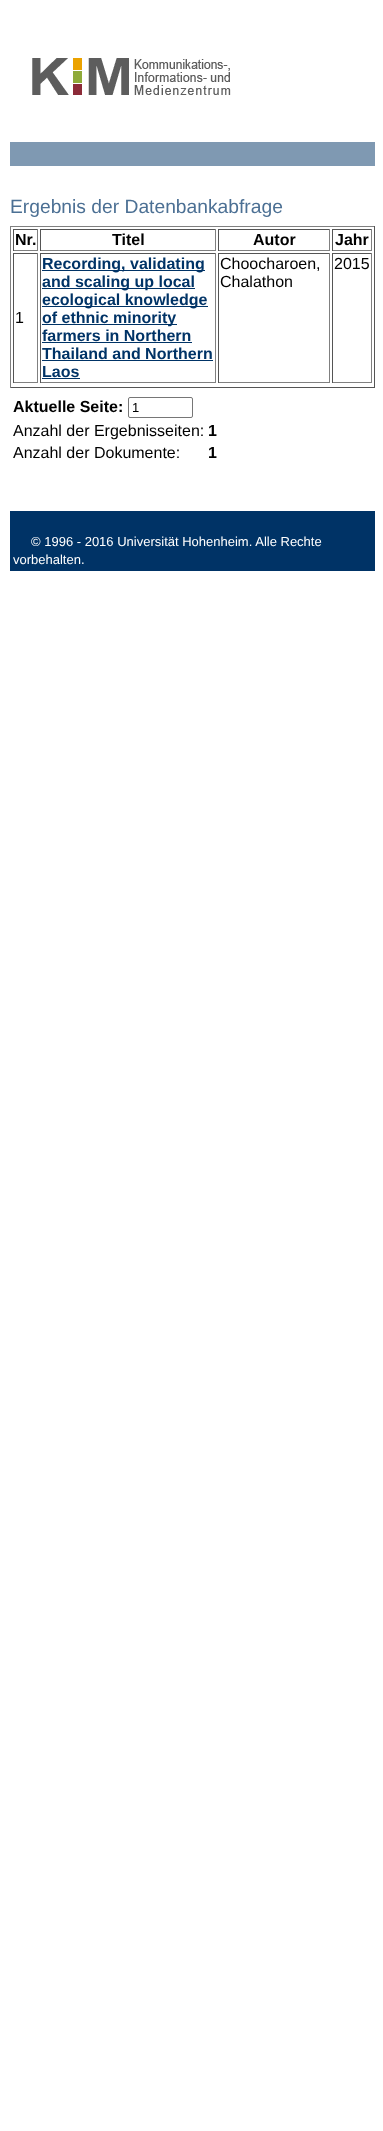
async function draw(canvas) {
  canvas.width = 383
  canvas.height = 2131
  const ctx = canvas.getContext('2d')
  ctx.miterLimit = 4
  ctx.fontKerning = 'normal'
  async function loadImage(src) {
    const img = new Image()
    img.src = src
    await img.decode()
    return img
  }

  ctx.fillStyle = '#fff'
  ctx.fillRect(0, 0, 383, 2131)
  ctx.drawImage(await loadImage('image0.png'), 32, 58, 199, 37)
  ctx.fillStyle = '#7f99b2'
  ctx.fillRect(10, 142, 365, 24)
  ctx.font = '19.25px Liberation Sans'
  ctx.fillStyle = '#4c7094'
  ctx.fillText('Ergebnis der Datenbankabfrage', 10, 213)
  ctx.fillStyle = '#808080'
  ctx.fillRect(10, 226, 365, 1)
  ctx.fillStyle = '#555'
  ctx.fillRect(374, 226, 1, 162)
  ctx.fillRect(10, 387, 365, 1)
  ctx.fillStyle = '#808080'
  ctx.fillRect(10, 226, 1, 162)
  ctx.fillStyle = '#555'
  ctx.fillRect(13, 229, 25, 1)
  ctx.fillStyle = '#808080'
  ctx.fillRect(37, 229, 1, 22)
  ctx.fillRect(13, 250, 25, 1)
  ctx.fillStyle = '#555'
  ctx.fillRect(13, 229, 1, 22)
  ctx.font = 'bold 16px Liberation Sans'
  ctx.fillStyle = '#000'
  ctx.fillText('Nr.', 15, 245)
  ctx.fillStyle = '#555'
  ctx.fillRect(40, 229, 176, 1)
  ctx.fillStyle = '#808080'
  ctx.fillRect(215, 229, 1, 22)
  ctx.fillRect(40, 250, 176, 1)
  ctx.fillStyle = '#555'
  ctx.fillRect(40, 229, 1, 22)
  ctx.fillStyle = '#000'
  ctx.fillText('Titel', 112, 245)
  ctx.fillStyle = '#555'
  ctx.fillRect(218, 229, 112, 1)
  ctx.fillStyle = '#808080'
  ctx.fillRect(329, 229, 1, 22)
  ctx.fillRect(218, 250, 112, 1)
  ctx.fillStyle = '#555'
  ctx.fillRect(218, 229, 1, 22)
  ctx.fillStyle = '#000'
  ctx.fillText('Autor', 253, 245)
  ctx.fillStyle = '#555'
  ctx.fillRect(332, 229, 40, 1)
  ctx.fillStyle = '#808080'
  ctx.fillRect(371, 229, 1, 22)
  ctx.fillRect(332, 250, 40, 1)
  ctx.fillStyle = '#555'
  ctx.fillRect(332, 229, 1, 22)
  ctx.fillStyle = '#000'
  ctx.fillText('Jahr', 335, 245)
  ctx.fillStyle = '#555'
  ctx.fillRect(40, 253, 176, 1)
  ctx.fillStyle = '#808080'
  ctx.fillRect(215, 253, 1, 130)
  ctx.fillRect(40, 382, 176, 1)
  ctx.fillStyle = '#555'
  ctx.fillRect(40, 253, 1, 130)
  ctx.fillStyle = '#036'
  ctx.fillRect(42, 270, 163, 1)
  ctx.fillText('Recording, validating', 42, 269)
  ctx.fillRect(42, 288, 153, 1)
  ctx.fillText('and scaling up local', 42, 287)
  ctx.fillRect(42, 306, 166, 1)
  ctx.fillText('ecological knowledge', 42, 305)
  ctx.fillRect(42, 324, 135, 1)
  ctx.fillText('of ethnic minority', 42, 323)
  ctx.fillText('farmers in Northern', 42, 341)
  ctx.fillRect(42, 342, 150, 1)
  ctx.fillText('Thailand and Northern', 42, 359)
  ctx.fillRect(42, 360, 171, 1)
  ctx.fillText('Laos', 42, 377)
  ctx.fillRect(42, 378, 38, 1)
  ctx.fillStyle = '#555'
  ctx.fillRect(218, 253, 112, 1)
  ctx.fillStyle = '#808080'
  ctx.fillRect(329, 253, 1, 130)
  ctx.fillRect(218, 382, 112, 1)
  ctx.fillStyle = '#555'
  ctx.fillRect(218, 253, 1, 130)
  ctx.font = '16px Liberation Sans'
  ctx.fillStyle = '#000'
  ctx.fillText('Choocharoen,', 220, 269)
  ctx.fillText('Chalathon', 220, 287)
  ctx.fillStyle = '#555'
  ctx.fillRect(332, 253, 40, 1)
  ctx.fillStyle = '#808080'
  ctx.fillRect(371, 253, 1, 130)
  ctx.fillRect(332, 382, 40, 1)
  ctx.fillStyle = '#555'
  ctx.fillRect(332, 253, 1, 130)
  ctx.fillStyle = '#000'
  ctx.fillText('2015', 334, 269)
  ctx.fillStyle = '#555'
  ctx.fillRect(13, 253, 25, 1)
  ctx.fillStyle = '#808080'
  ctx.fillRect(37, 253, 1, 130)
  ctx.fillRect(13, 382, 25, 1)
  ctx.fillStyle = '#555'
  ctx.fillRect(13, 253, 1, 130)
  ctx.fillStyle = '#000'
  ctx.fillText('1', 15, 323)
  ctx.font = 'bold 16px Liberation Sans'
  ctx.fillText('Aktuelle Seite:', 13, 412)
  ctx.beginPath()
  ctx.roundRect(128.5, 397.5, 64, 20, 1.5)
  ctx.strokeStyle = '#767676'
  ctx.stroke()
  ctx.font = '13px Liberation Sans'
  ctx.fillText('1', 132, 412)
  ctx.font = '16px Liberation Sans'
  ctx.fillText('Anzahl der Ergebnisseiten:', 13, 436)
  ctx.font = 'bold 16px Liberation Sans'
  ctx.fillText('1', 208, 436)
  ctx.font = '16px Liberation Sans'
  ctx.fillText('Anzahl der Dokumente:', 13, 458)
  ctx.font = 'bold 16px Liberation Sans'
  ctx.fillText('1', 208, 458)
  ctx.fillStyle = '#036'
  ctx.fillRect(10, 511, 365, 60)
  ctx.font = '13px Liberation Sans'
  ctx.fillStyle = '#fff'
  ctx.fillText('© 1996 - 2016 Universität Hohenheim. Alle Rechte', 31, 546)
  ctx.fillText('vorbehalten.', 13, 564)
}

draw(document.querySelector('canvas'))
